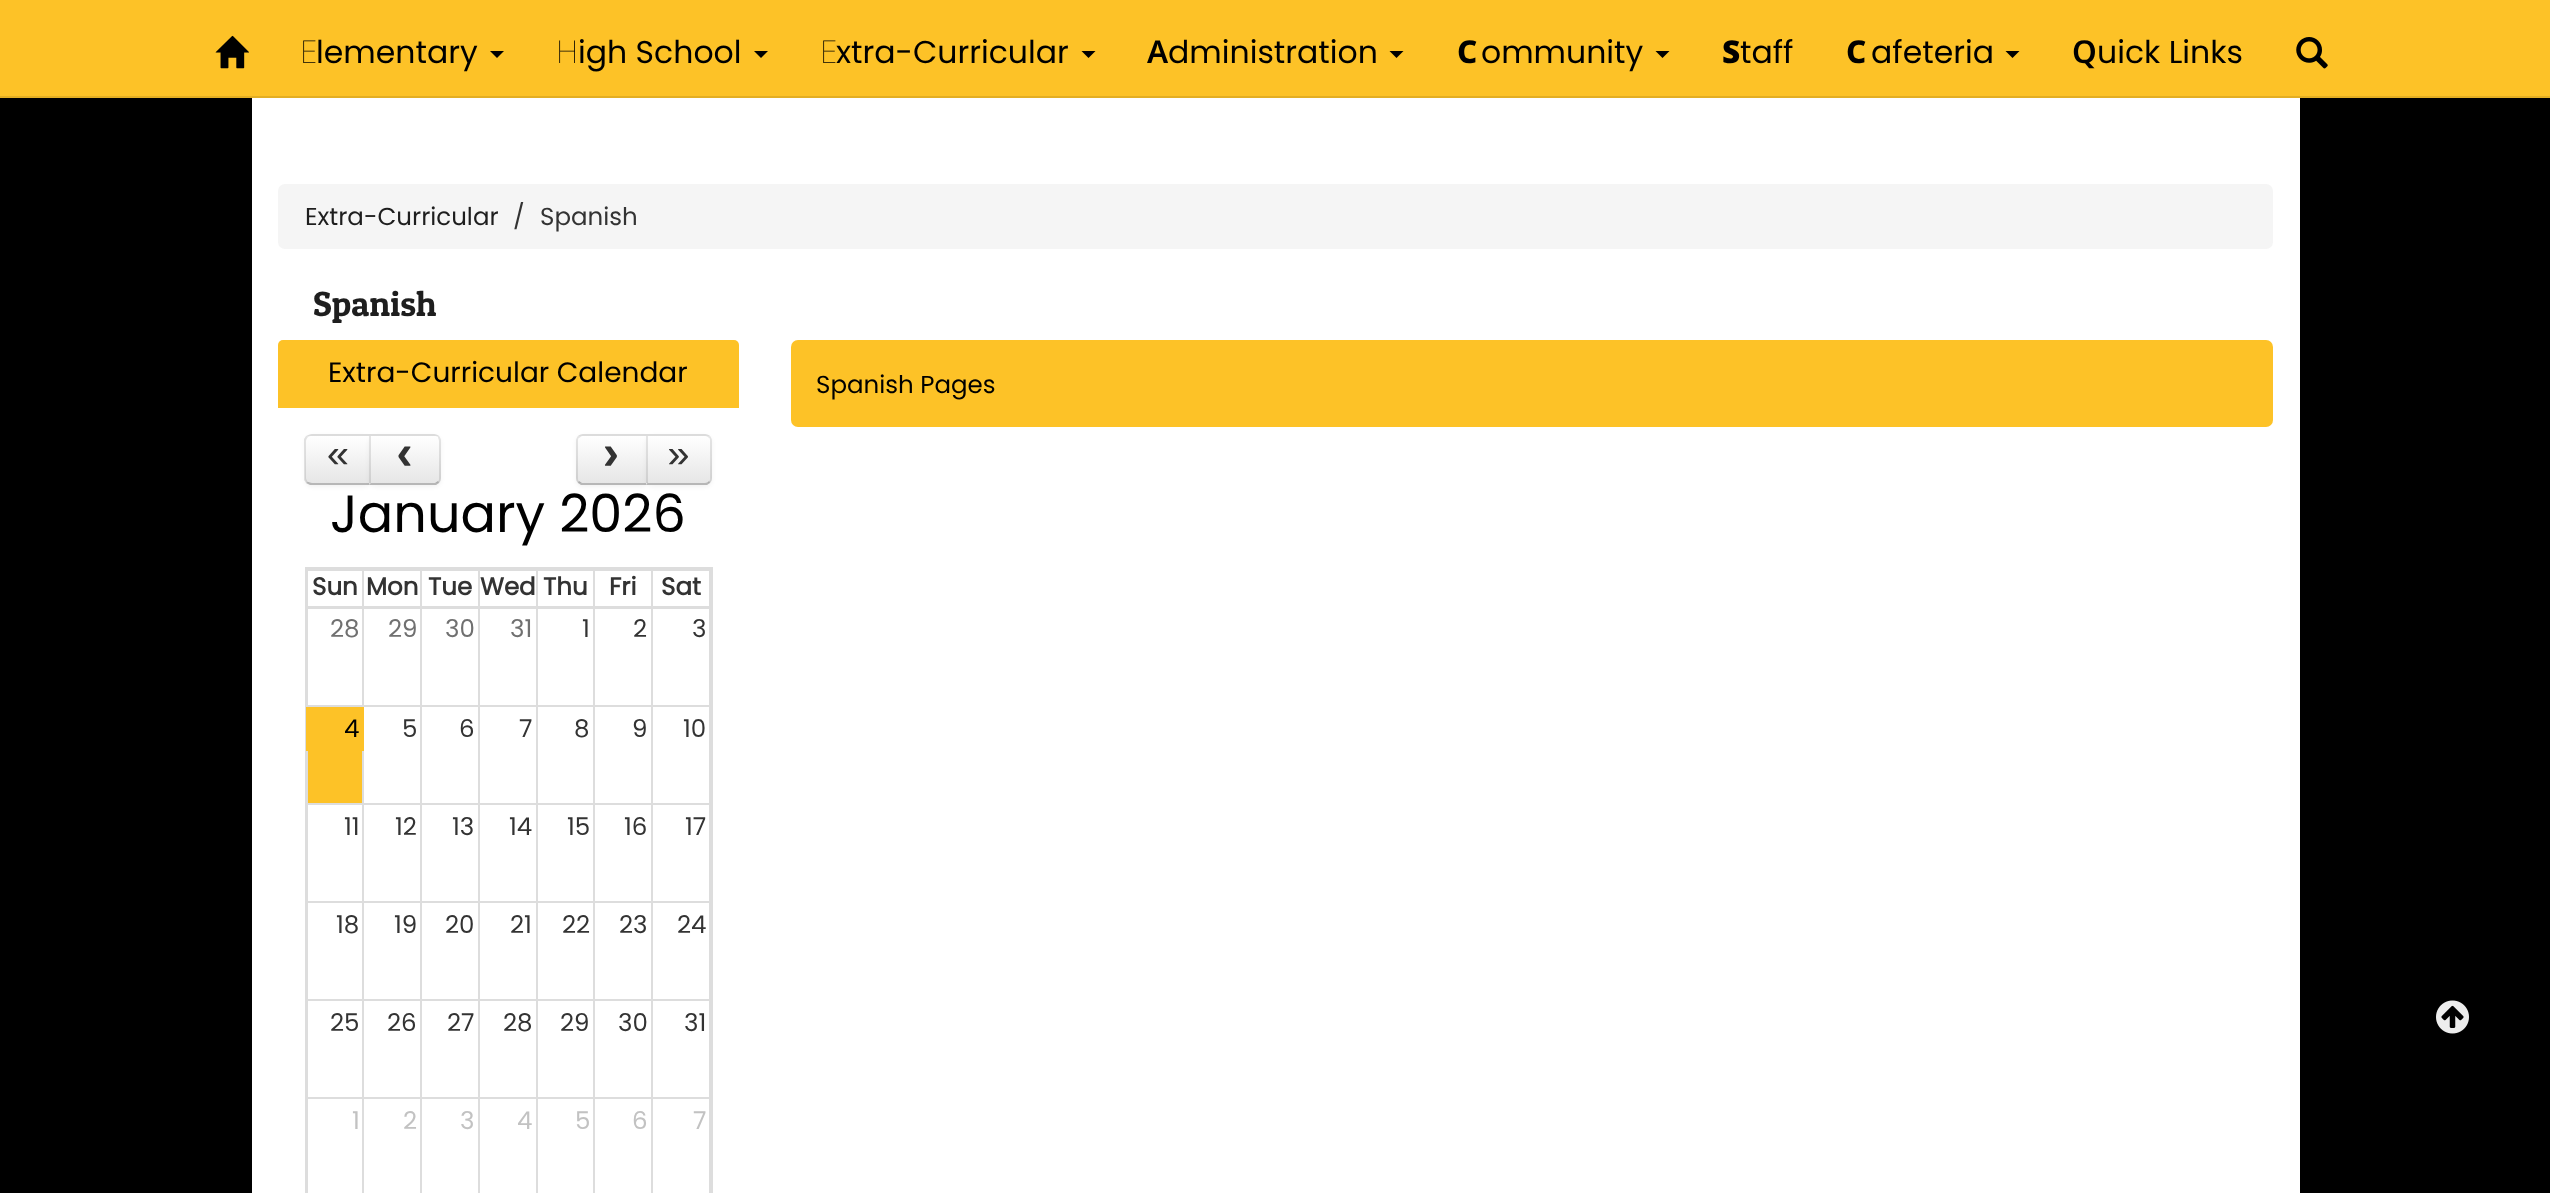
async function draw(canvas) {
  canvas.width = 2550
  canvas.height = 1193
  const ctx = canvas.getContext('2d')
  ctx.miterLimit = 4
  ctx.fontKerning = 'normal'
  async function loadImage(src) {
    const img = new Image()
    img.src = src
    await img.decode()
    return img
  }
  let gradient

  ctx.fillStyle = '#000'
  ctx.fillRect(0, 0, 2550, 1193)
  ctx.fillStyle = '#fdc227'
  ctx.fillRect(0, 0, 2550, 96)
  ctx.fillStyle = '#e3ae23'
  ctx.fillRect(0, 96, 2550, 2)
  ctx.drawImage(await loadImage('image0.png'), 215, 35, 34, 34)
  ctx.font = '100 31.5px Noto Sans'
  ctx.fillStyle = '#000'
  ctx.fillText('E', 300, 63)
  ctx.font = '31.5px Poppins'
  ctx.fillText('lementary', 316, 63)
  ctx.beginPath()
  ctx.moveTo(490, 51)
  ctx.lineTo(504, 51)
  ctx.lineTo(497, 58)
  ctx.closePath()
  ctx.fill()
  ctx.font = '100 31.5px Noto Sans'
  ctx.fillText('H', 556, 63)
  ctx.font = '31.5px Poppins'
  ctx.fillText('igh School', 578, 63)
  ctx.beginPath()
  ctx.moveTo(754, 51)
  ctx.lineTo(768, 51)
  ctx.lineTo(761, 58)
  ctx.closePath()
  ctx.fill()
  ctx.font = '100 31.5px Noto Sans'
  ctx.fillText('E', 820, 63)
  ctx.font = '31.5px Poppins'
  ctx.fillText('xtra-Curricular', 836, 63)
  ctx.beginPath()
  ctx.moveTo(1081.5, 51)
  ctx.lineTo(1095.5, 51)
  ctx.lineTo(1088.5, 58)
  ctx.closePath()
  ctx.fill()
  ctx.font = '600 31.5px Noto Sans'
  ctx.fillText('A', 1147, 63)
  ctx.font = '31.5px Poppins'
  ctx.fillText('dministration', 1168, 63)
  ctx.beginPath()
  ctx.moveTo(1389.5, 51)
  ctx.lineTo(1403.5, 51)
  ctx.lineTo(1396.5, 58)
  ctx.closePath()
  ctx.fill()
  ctx.font = '800 31.5px Noto Sans'
  ctx.fillText('C', 1457, 63)
  ctx.font = '31.5px Poppins'
  ctx.fillText('ommunity', 1481, 63)
  ctx.beginPath()
  ctx.moveTo(1655.5, 51)
  ctx.lineTo(1669.5, 51)
  ctx.lineTo(1662.5, 58)
  ctx.closePath()
  ctx.fill()
  ctx.font = '900 31.5px Noto Sans'
  ctx.fillText('S', 1722, 63)
  ctx.font = '31.5px Poppins'
  ctx.fillText('taff', 1740, 63)
  ctx.font = '800 31.5px Noto Sans'
  ctx.fillText('C', 1846, 63)
  ctx.font = '31.5px Poppins'
  ctx.fillText('afeteria', 1871, 63)
  ctx.beginPath()
  ctx.moveTo(2005.5, 51)
  ctx.lineTo(2019.5, 51)
  ctx.lineTo(2012.5, 58)
  ctx.closePath()
  ctx.fill()
  ctx.font = '600 31.5px Noto Sans'
  ctx.fillText('Q', 2072, 63)
  ctx.font = '31.5px Poppins'
  ctx.fillText('uick Links', 2097, 63)
  ctx.drawImage(await loadImage('image1.png'), 2296, 37, 32, 32)
  ctx.fillStyle = '#fff'
  ctx.fillRect(252, 98, 2048, 1095)
  ctx.fillStyle = '#f5f5f5'
  ctx.beginPath()
  ctx.roundRect(278, 184, 1995, 65, 7)
  ctx.fill()
  ctx.font = '24.5px Poppins'
  ctx.fillStyle = '#1e1e1e'
  ctx.fillText('Extra-Curricular', 305, 225)
  ctx.fillStyle = '#333'
  ctx.fillText('/', 513, 225)
  ctx.fillText('Spanish', 540, 225)
  ctx.font = '35px Patua One'
  ctx.fillStyle = '#1e1e1e'
  ctx.fillText('Spanish', 313, 316)
  ctx.fillStyle = '#fdc227'
  ctx.beginPath()
  ctx.roundRect(278, 340, 461, 68, [5, 5, 0, 0])
  ctx.fill()
  ctx.font = '28px Poppins'
  ctx.fillStyle = '#000'
  ctx.fillText('Extra-Curricular Calendar', 328, 382)
  ctx.fillStyle = '#0000000d'
  ctx.filter = 'blur(2px)'
  ctx.beginPath()
  ctx.roundRect(305, 436, 66, 51, 7)
  ctx.fill()
  ctx.filter = 'none'
  ctx.fillStyle = '#f5f5f5'
  ctx.beginPath()
  ctx.roundRect(305, 434, 66, 51, [7, 0, 0, 7])
  ctx.fill()
  ctx.save()
  ctx.beginPath()
  ctx.roundRect(305, 434, 66, 51, [7, 0, 0, 7])
  ctx.clip()
  gradient = ctx.createLinearGradient(338, 436, 338, 483)
  gradient.addColorStop(0, '#fff')
  gradient.addColorStop(1, '#e6e6e6')
  ctx.fillStyle = gradient
  ctx.fillRect(305, 436, 64, 47)
  ctx.restore()
  ctx.fillStyle = '#0000001a'
  ctx.beginPath()
  ctx.moveTo(312, 434)
  ctx.bezierCurveTo(310, 434, 308, 435, 306, 436)
  ctx.lineTo(308, 437)
  ctx.bezierCurveTo(309, 436, 310, 436, 312, 436)
  ctx.lineTo(369, 436)
  ctx.lineTo(371, 434)
  ctx.closePath()
  ctx.fill()
  ctx.fillStyle = '#00000040'
  ctx.beginPath()
  ctx.moveTo(371, 485)
  ctx.lineTo(310, 485)
  ctx.lineTo(306, 483)
  ctx.lineTo(308, 482)
  ctx.bezierCurveTo(309, 482, 310, 483, 312, 483)
  ctx.lineTo(369, 483)
  ctx.closePath()
  ctx.fill()
  ctx.fillStyle = '#0000001a'
  ctx.beginPath()
  ctx.moveTo(304, 439)
  ctx.lineTo(306, 436)
  ctx.lineTo(308, 437)
  ctx.bezierCurveTo(307, 438, 306, 440, 306, 441)
  ctx.lineTo(306, 478)
  ctx.bezierCurveTo(306, 479, 307, 481, 308, 482)
  ctx.lineTo(306, 483)
  ctx.lineTo(304, 480)
  ctx.closePath()
  ctx.fill()
  ctx.font = '39px Liberation Mono'
  ctx.fillStyle = '#333'
  ctx.fillText('«', 326, 467)
  ctx.fillStyle = '#0000000d'
  ctx.filter = 'blur(2px)'
  ctx.beginPath()
  ctx.roundRect(369, 436, 72, 51, 7)
  ctx.fill()
  ctx.filter = 'none'
  ctx.fillStyle = '#f5f5f5'
  ctx.beginPath()
  ctx.roundRect(369, 434, 72, 51, [0, 7, 7, 0])
  ctx.fill()
  ctx.save()
  ctx.beginPath()
  ctx.roundRect(369, 434, 72, 51, [0, 7, 7, 0])
  ctx.clip()
  gradient = ctx.createLinearGradient(405, 436, 405, 483)
  gradient.addColorStop(0, '#fff')
  gradient.addColorStop(1, '#e6e6e6')
  ctx.fillStyle = gradient
  ctx.fillRect(369, 436, 72, 47)
  ctx.restore()
  ctx.fillStyle = '#0000001a'
  ctx.beginPath()
  ctx.moveTo(369, 434)
  ctx.lineTo(371, 436)
  ctx.lineTo(434, 436)
  ctx.bezierCurveTo(436, 436, 437, 436, 438, 437)
  ctx.lineTo(439, 436)
  ctx.bezierCurveTo(438, 435, 436, 434, 434, 434)
  ctx.closePath()
  ctx.fill()
  ctx.beginPath()
  ctx.moveTo(441, 478)
  ctx.lineTo(441, 441)
  ctx.bezierCurveTo(441, 439, 440, 437, 439, 436)
  ctx.lineTo(438, 437)
  ctx.bezierCurveTo(438, 438, 439, 440, 439, 441)
  ctx.lineTo(439, 478)
  ctx.bezierCurveTo(439, 479, 439, 481, 438, 481)
  ctx.lineTo(439, 483)
  ctx.bezierCurveTo(440, 482, 441, 480, 441, 478)
  ctx.closePath()
  ctx.fill()
  ctx.fillStyle = '#00000040'
  ctx.beginPath()
  ctx.moveTo(439, 483)
  ctx.lineTo(436, 485)
  ctx.lineTo(369, 485)
  ctx.lineTo(371, 483)
  ctx.lineTo(435, 483)
  ctx.lineTo(438, 481)
  ctx.closePath()
  ctx.fill()
  ctx.fillStyle = '#0000001a'
  ctx.beginPath()
  ctx.moveTo(371, 436)
  ctx.lineTo(369, 434)
  ctx.lineTo(369, 485)
  ctx.lineTo(371, 483)
  ctx.closePath()
  ctx.fill()
  ctx.font = 'bold 49px Liberation Mono'
  ctx.fillStyle = '#333'
  ctx.fillText('‹', 390, 469)
  ctx.fillStyle = '#0000000d'
  ctx.filter = 'blur(2px)'
  ctx.beginPath()
  ctx.roundRect(576, 436, 72, 51, 7)
  ctx.fill()
  ctx.filter = 'none'
  ctx.fillStyle = '#f5f5f5'
  ctx.beginPath()
  ctx.roundRect(576, 434, 72, 51, [7, 0, 0, 7])
  ctx.fill()
  ctx.save()
  ctx.beginPath()
  ctx.roundRect(576, 434, 72, 51, [7, 0, 0, 7])
  ctx.clip()
  gradient = ctx.createLinearGradient(612, 436, 612, 483)
  gradient.addColorStop(0, '#fff')
  gradient.addColorStop(1, '#e6e6e6')
  ctx.fillStyle = gradient
  ctx.fillRect(576, 436, 70, 47)
  ctx.restore()
  ctx.fillStyle = '#0000001a'
  ctx.beginPath()
  ctx.moveTo(583, 434)
  ctx.bezierCurveTo(581, 434, 579, 435, 578, 436)
  ctx.lineTo(579, 438)
  ctx.lineTo(582, 436)
  ctx.lineTo(646, 436)
  ctx.lineTo(648, 434)
  ctx.closePath()
  ctx.fill()
  ctx.fillStyle = '#00000040'
  ctx.beginPath()
  ctx.moveTo(648, 485)
  ctx.lineTo(581, 485)
  ctx.lineTo(578, 483)
  ctx.lineTo(579, 481)
  ctx.lineTo(582, 483)
  ctx.lineTo(646, 483)
  ctx.closePath()
  ctx.fill()
  ctx.fillStyle = '#0000001a'
  ctx.beginPath()
  ctx.moveTo(578, 436)
  ctx.bezierCurveTo(577, 437, 576, 439, 576, 441)
  ctx.lineTo(576, 478)
  ctx.bezierCurveTo(576, 480, 577, 482, 578, 483)
  ctx.lineTo(579, 481)
  ctx.bezierCurveTo(578, 481, 578, 479, 578, 478)
  ctx.lineTo(578, 441)
  ctx.bezierCurveTo(578, 440, 578, 438, 579, 438)
  ctx.closePath()
  ctx.fill()
  ctx.fillStyle = '#333'
  ctx.fillText('›', 596, 469)
  ctx.fillStyle = '#0000000d'
  ctx.filter = 'blur(2px)'
  ctx.beginPath()
  ctx.roundRect(646, 436, 66, 51, 7)
  ctx.fill()
  ctx.filter = 'none'
  ctx.fillStyle = '#f5f5f5'
  ctx.beginPath()
  ctx.roundRect(646, 434, 66, 51, [0, 7, 7, 0])
  ctx.fill()
  ctx.save()
  ctx.beginPath()
  ctx.roundRect(646, 434, 66, 51, [0, 7, 7, 0])
  ctx.clip()
  gradient = ctx.createLinearGradient(679, 436, 679, 483)
  gradient.addColorStop(0, '#fff')
  gradient.addColorStop(1, '#e6e6e6')
  ctx.fillStyle = gradient
  ctx.fillRect(646, 436, 66, 47)
  ctx.restore()
  ctx.fillStyle = '#ffffff33'
  ctx.beginPath()
  ctx.moveTo(648, 438)
  ctx.lineTo(696, 438)
  ctx.bezierCurveTo(699, 438, 709, 436, 710, 442)
  ctx.lineTo(710, 481)
  ctx.bezierCurveTo(711, 480, 711, 479, 711, 478)
  ctx.lineTo(711, 441)
  ctx.bezierCurveTo(711, 438, 709, 436, 706, 436)
  ctx.lineTo(648, 436)
  ctx.closePath()
  ctx.fill()
  ctx.fillStyle = '#0000001a'
  ctx.beginPath()
  ctx.moveTo(646, 434)
  ctx.lineTo(648, 436)
  ctx.lineTo(705, 436)
  ctx.bezierCurveTo(707, 436, 708, 437, 709, 438)
  ctx.lineTo(710, 436)
  ctx.bezierCurveTo(709, 435, 707, 434, 705, 434)
  ctx.closePath()
  ctx.fill()
  ctx.beginPath()
  ctx.moveTo(710, 436)
  ctx.bezierCurveTo(711, 437, 712, 439, 712, 441)
  ctx.lineTo(712, 478)
  ctx.bezierCurveTo(712, 480, 711, 482, 710, 483)
  ctx.lineTo(709, 481)
  ctx.bezierCurveTo(710, 481, 710, 479, 710, 478)
  ctx.lineTo(710, 441)
  ctx.bezierCurveTo(710, 440, 710, 438, 709, 438)
  ctx.closePath()
  ctx.fill()
  ctx.fillStyle = '#00000040'
  ctx.beginPath()
  ctx.moveTo(646, 485)
  ctx.lineTo(648, 482)
  ctx.lineTo(648, 483)
  ctx.lineTo(705, 483)
  ctx.bezierCurveTo(707, 483, 708, 482, 709, 481)
  ctx.lineTo(710, 483)
  ctx.lineTo(707, 485)
  ctx.closePath()
  ctx.fill()
  ctx.fillStyle = '#0000001a'
  ctx.beginPath()
  ctx.moveTo(646, 434)
  ctx.lineTo(646, 484)
  ctx.lineTo(648, 482)
  ctx.lineTo(648, 436)
  ctx.closePath()
  ctx.fill()
  ctx.font = '39px Liberation Mono'
  ctx.fillStyle = '#333'
  ctx.fillText('»', 667, 467)
  ctx.font = '52.5px Poppins'
  ctx.fillStyle = '#000'
  ctx.fillText('January 2026', 330, 532)
  ctx.fillStyle = '#ddd'
  ctx.fillRect(305, 567, 407, 2)
  ctx.fillRect(305, 606, 407, 1)
  ctx.fillRect(711, 606, 2, 587)
  ctx.fillRect(711, 567, 2, 40)
  ctx.fillRect(305, 606, 1, 587)
  ctx.fillRect(305, 567, 2, 40)
  ctx.fillRect(651, 569, 60, 2)
  ctx.fillRect(651, 569, 2, 38)
  ctx.fillRect(593, 569, 60, 2)
  ctx.fillRect(593, 569, 2, 38)
  ctx.fillRect(536, 569, 59, 2)
  ctx.fillRect(536, 569, 2, 38)
  ctx.fillRect(478, 569, 59, 2)
  ctx.fillRect(478, 569, 2, 38)
  ctx.fillRect(420, 569, 60, 2)
  ctx.fillRect(420, 569, 2, 38)
  ctx.fillRect(362, 569, 60, 2)
  ctx.fillRect(362, 569, 2, 38)
  ctx.fillRect(306, 569, 58, 2)
  ctx.fillRect(307, 569, 1, 38)
  ctx.font = 'bold 24.5px Poppins'
  ctx.fillStyle = '#333'
  ctx.fillText('Sun', 312, 595)
  ctx.fillText('Mon', 366, 595)
  ctx.fillText('Tue', 428, 595)
  ctx.fillText('Wed', 480, 595)
  ctx.fillText('Thu', 543, 595)
  ctx.fillText('Fri', 609, 595)
  ctx.fillStyle = '#ddd'
  ctx.fillRect(709, 569, 2, 38)
  ctx.fillStyle = '#333'
  ctx.fillText('Sat', 661, 595)
  ctx.fillStyle = '#ddd'
  ctx.fillRect(651, 607, 60, 2)
  ctx.fillRect(709, 607, 2, 100)
  ctx.fillRect(651, 705, 60, 2)
  ctx.fillRect(651, 607, 2, 100)
  ctx.fillRect(593, 607, 60, 2)
  ctx.fillRect(593, 705, 60, 2)
  ctx.fillRect(593, 607, 2, 100)
  ctx.fillRect(536, 607, 59, 2)
  ctx.fillRect(536, 705, 59, 2)
  ctx.fillRect(536, 607, 2, 100)
  ctx.fillRect(478, 607, 59, 2)
  ctx.fillRect(478, 705, 59, 2)
  ctx.fillRect(478, 607, 2, 100)
  ctx.fillRect(420, 607, 60, 2)
  ctx.fillRect(420, 705, 60, 2)
  ctx.fillRect(420, 607, 2, 100)
  ctx.fillRect(362, 607, 60, 2)
  ctx.fillRect(362, 705, 60, 2)
  ctx.fillRect(362, 607, 2, 100)
  ctx.fillRect(306, 607, 58, 2)
  ctx.fillRect(306, 705, 58, 2)
  ctx.fillRect(306, 607, 2, 100)
  ctx.font = '24.5px Poppins'
  ctx.fillStyle = '#707070'
  ctx.fillText('28', 330, 637)
  ctx.fillText('29', 388, 637)
  ctx.fillText('30', 445, 637)
  ctx.fillText('31', 510, 637)
  ctx.fillStyle = '#333'
  ctx.fillText('1', 582, 637)
  ctx.fillText('2', 633, 637)
  ctx.fillText('3', 692, 637)
  ctx.fillStyle = '#fdc227'
  ctx.fillRect(308, 751, 54, 52)
  ctx.fillStyle = '#ddd'
  ctx.fillRect(709, 705, 2, 100)
  ctx.fillRect(651, 803, 60, 2)
  ctx.fillRect(651, 705, 2, 100)
  ctx.fillRect(593, 803, 60, 2)
  ctx.fillRect(593, 705, 2, 100)
  ctx.fillRect(536, 803, 59, 2)
  ctx.fillRect(536, 705, 2, 100)
  ctx.fillRect(478, 803, 59, 2)
  ctx.fillRect(478, 705, 2, 100)
  ctx.fillRect(420, 803, 60, 2)
  ctx.fillRect(420, 705, 2, 100)
  ctx.fillRect(362, 803, 60, 2)
  ctx.fillRect(362, 705, 2, 100)
  ctx.fillRect(306, 803, 58, 2)
  ctx.fillRect(306, 705, 2, 100)
  ctx.fillStyle = '#fdc227'
  ctx.fillRect(306, 707, 58, 44)
  ctx.fillStyle = '#000'
  ctx.fillText('4', 344, 737)
  ctx.fillStyle = '#333'
  ctx.fillText('5', 402, 737)
  ctx.fillText('6', 459, 737)
  ctx.fillText('7', 519, 737)
  ctx.fillText('8', 574, 737)
  ctx.fillText('9', 632, 737)
  ctx.fillText('10', 683, 737)
  ctx.fillStyle = '#ddd'
  ctx.fillRect(709, 803, 2, 100)
  ctx.fillRect(651, 901, 60, 2)
  ctx.fillRect(651, 803, 2, 100)
  ctx.fillRect(593, 901, 60, 2)
  ctx.fillRect(593, 803, 2, 100)
  ctx.fillRect(536, 901, 59, 2)
  ctx.fillRect(536, 803, 2, 100)
  ctx.fillRect(478, 901, 59, 2)
  ctx.fillRect(478, 803, 2, 100)
  ctx.fillRect(420, 901, 60, 2)
  ctx.fillRect(420, 803, 2, 100)
  ctx.fillRect(362, 901, 60, 2)
  ctx.fillRect(362, 803, 2, 100)
  ctx.fillRect(306, 901, 58, 2)
  ctx.fillRect(306, 803, 2, 100)
  ctx.fillStyle = '#333'
  ctx.fillText('11', 344, 835)
  ctx.fillText('12', 395, 835)
  ctx.fillText('13', 452, 835)
  ctx.fillText('14', 509, 835)
  ctx.fillText('15', 567, 835)
  ctx.fillText('16', 624, 835)
  ctx.fillText('17', 685, 835)
  ctx.fillStyle = '#ddd'
  ctx.fillRect(709, 901, 2, 100)
  ctx.fillRect(651, 999, 60, 2)
  ctx.fillRect(651, 901, 2, 100)
  ctx.fillRect(593, 999, 60, 2)
  ctx.fillRect(593, 901, 2, 100)
  ctx.fillRect(536, 999, 59, 2)
  ctx.fillRect(536, 901, 2, 100)
  ctx.fillRect(478, 999, 59, 2)
  ctx.fillRect(478, 901, 2, 100)
  ctx.fillRect(420, 999, 60, 2)
  ctx.fillRect(420, 901, 2, 100)
  ctx.fillRect(362, 999, 60, 2)
  ctx.fillRect(362, 901, 2, 100)
  ctx.fillRect(306, 999, 58, 2)
  ctx.fillRect(306, 901, 2, 100)
  ctx.fillStyle = '#333'
  ctx.fillText('18', 336, 933)
  ctx.fillText('19', 394, 933)
  ctx.fillText('20', 445, 933)
  ctx.fillText('21', 510, 933)
  ctx.fillText('22', 562, 933)
  ctx.fillText('23', 619, 933)
  ctx.fillText('24', 677, 933)
  ctx.fillStyle = '#ddd'
  ctx.fillRect(709, 999, 2, 100)
  ctx.fillRect(651, 1097, 60, 2)
  ctx.fillRect(651, 999, 2, 100)
  ctx.fillRect(593, 1097, 60, 2)
  ctx.fillRect(593, 999, 2, 100)
  ctx.fillRect(536, 1097, 59, 2)
  ctx.fillRect(536, 999, 2, 100)
  ctx.fillRect(478, 1097, 59, 2)
  ctx.fillRect(478, 999, 2, 100)
  ctx.fillRect(420, 1097, 60, 2)
  ctx.fillRect(420, 999, 2, 100)
  ctx.fillRect(362, 1097, 60, 2)
  ctx.fillRect(362, 999, 2, 100)
  ctx.fillRect(306, 1097, 58, 2)
  ctx.fillRect(306, 999, 2, 194)
  ctx.fillStyle = '#333'
  ctx.fillText('25', 330, 1031)
  ctx.fillText('26', 387, 1031)
  ctx.fillText('27', 447, 1031)
  ctx.fillText('28', 503, 1031)
  ctx.fillText('29', 560, 1031)
  ctx.fillText('30', 618, 1031)
  ctx.fillText('31', 684, 1031)
  ctx.fillStyle = '#ddd'
  ctx.fillRect(362, 1097, 2, 96)
  ctx.fillRect(420, 1097, 2, 96)
  ctx.fillRect(478, 1097, 2, 96)
  ctx.fillRect(536, 1097, 2, 96)
  ctx.fillRect(593, 1097, 2, 96)
  ctx.fillRect(709, 1097, 2, 96)
  ctx.fillRect(651, 1097, 2, 96)
  ctx.fillStyle = '#c2c2c2'
  ctx.fillText('1', 352, 1129)
  ctx.fillText('2', 403, 1129)
  ctx.fillText('3', 460, 1129)
  ctx.fillText('4', 517, 1129)
  ctx.fillText('5', 575, 1129)
  ctx.fillText('6', 632, 1129)
  ctx.fillText('7', 693, 1129)
  ctx.fillStyle = '#fdc227'
  ctx.beginPath()
  ctx.roundRect(791, 340, 1482, 87, 7)
  ctx.fill()
  ctx.fillStyle = '#000'
  ctx.fillText('Spanish Pages', 816, 393)
  ctx.drawImage(await loadImage('image2.png'), 2436, 1000, 33, 34)
}

draw(document.querySelector('canvas'))
